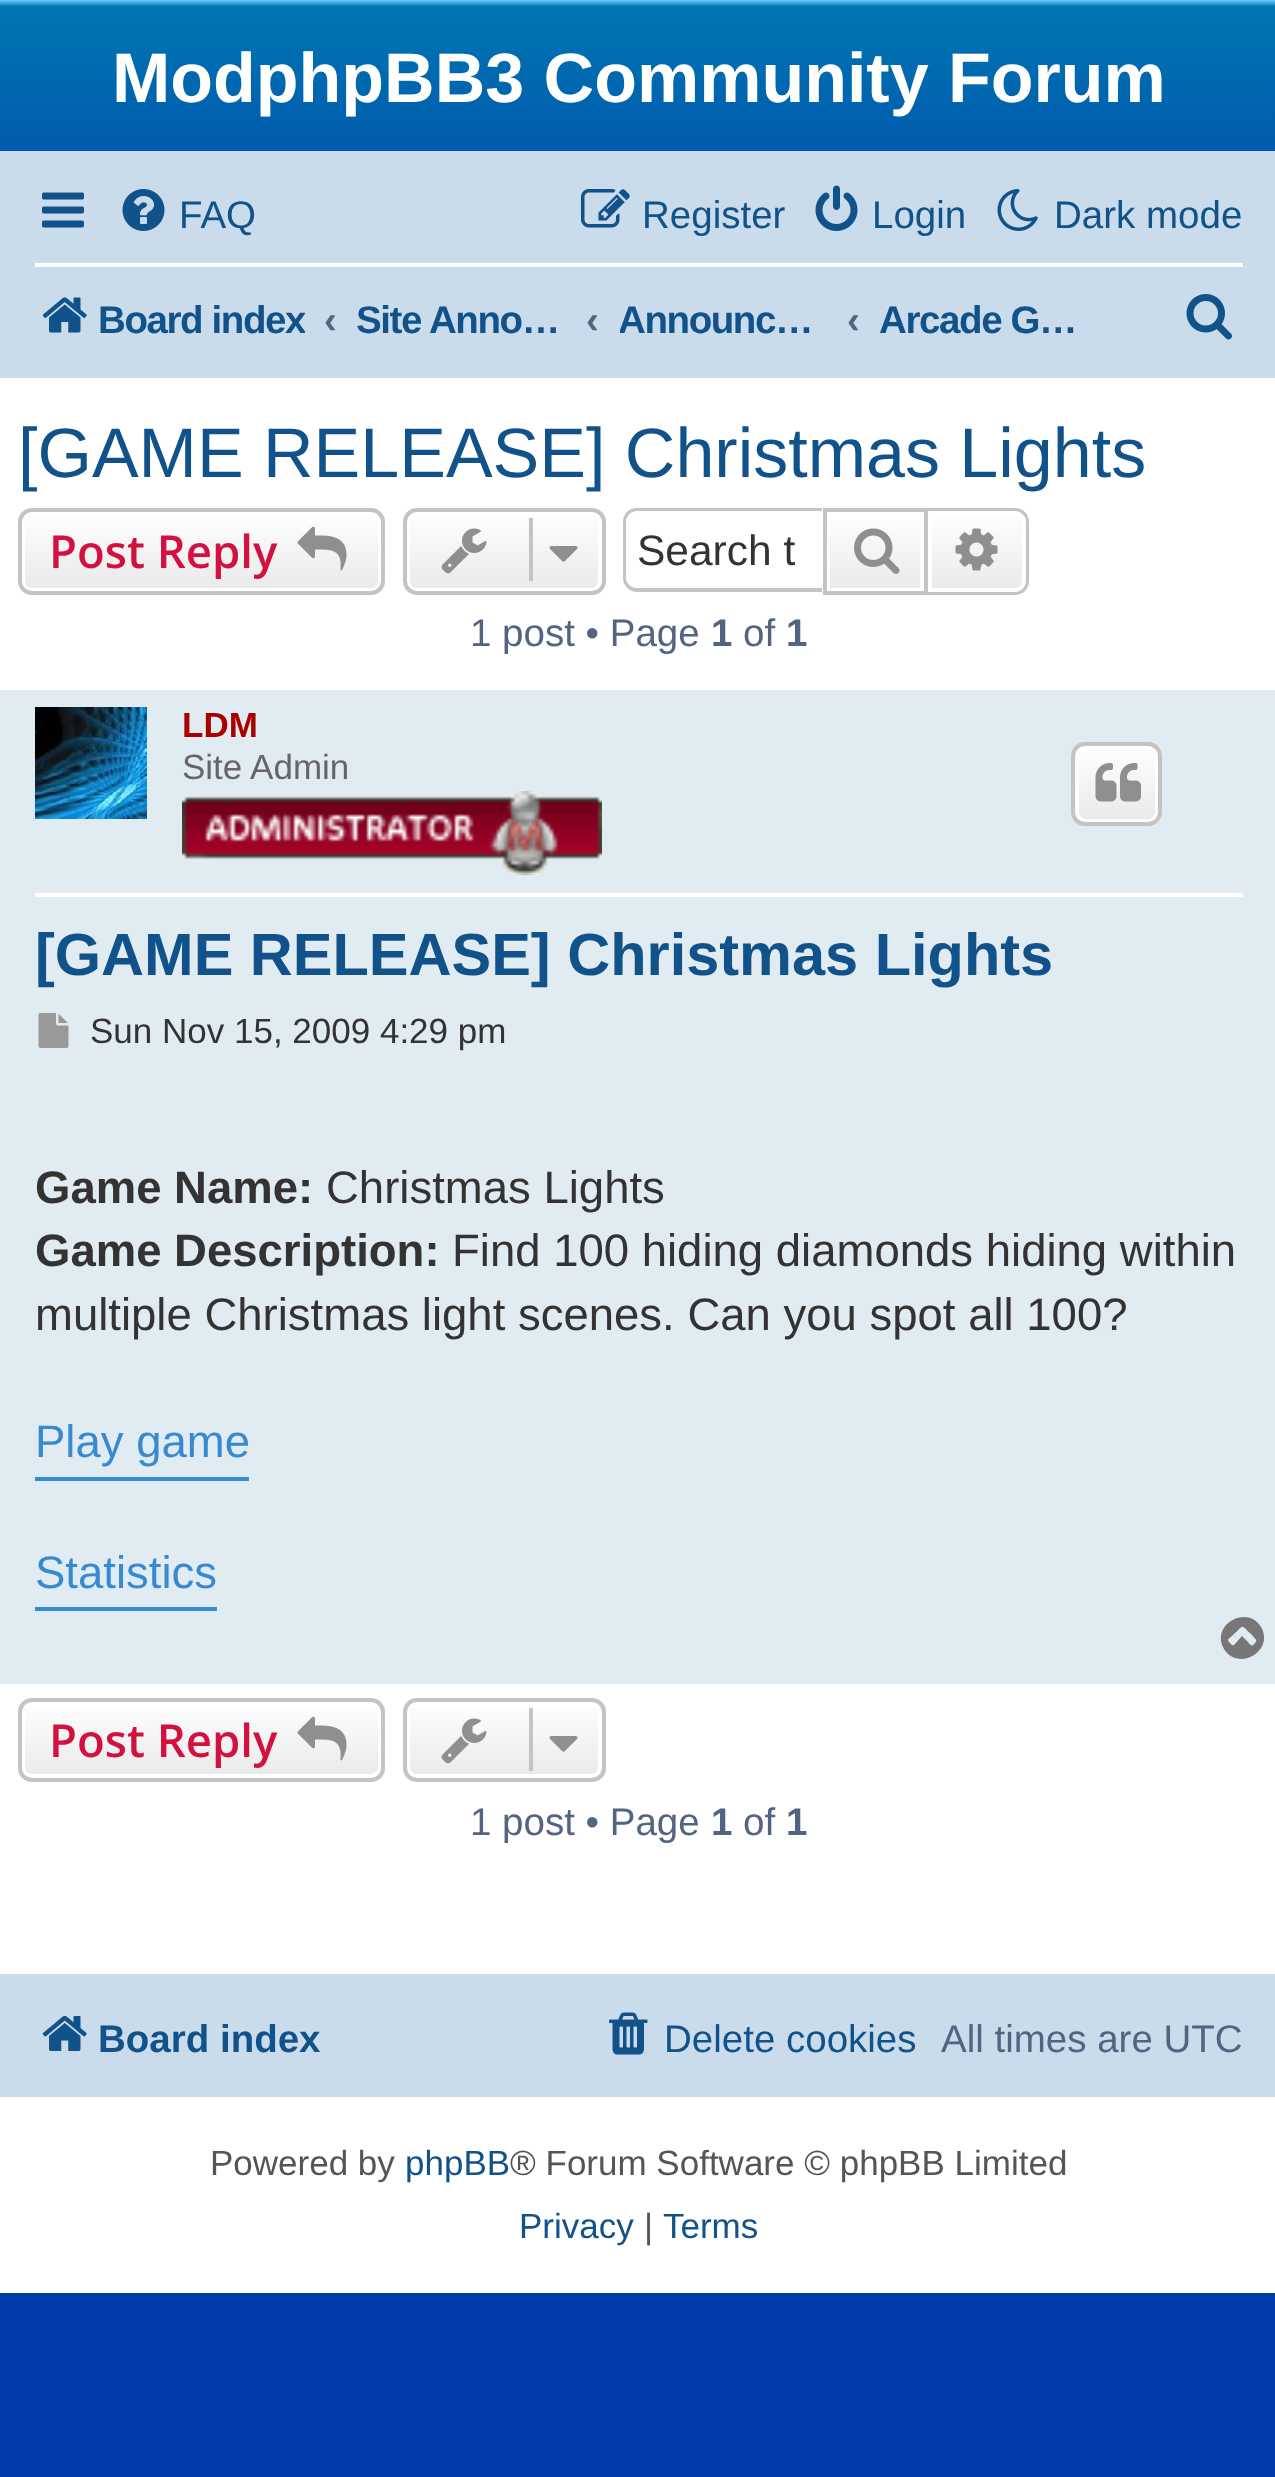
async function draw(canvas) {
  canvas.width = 1275
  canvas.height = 2477
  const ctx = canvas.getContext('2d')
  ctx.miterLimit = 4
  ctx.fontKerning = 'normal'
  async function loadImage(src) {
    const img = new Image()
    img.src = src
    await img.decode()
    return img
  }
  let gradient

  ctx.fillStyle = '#003bab'
  ctx.fillRect(0, 0, 1275, 2477)
  ctx.fillStyle = '#fff'
  ctx.fillRect(0, 378, 1275, 1915)
  gradient = ctx.createLinearGradient(639, 0, 639, 322)
  gradient.addColorStop(0, '#6aceff')
  gradient.addColorStop(0.02, '#0076b1')
  gradient.addColorStop(1, '#003bab')
  ctx.fillStyle = gradient
  ctx.fillRect(0, 0, 1275, 151)
  ctx.font = 'bold 70px Liberation Sans'
  ctx.fillStyle = '#fff'
  ctx.fillText('ModphpBB3 Community Forum', 112, 102)
  ctx.fillStyle = '#cadceb'
  ctx.fillRect(0, 151, 1275, 227)
  ctx.drawImage(await loadImage('image0.png'), 42, 192, 42, 36)
  ctx.drawImage(await loadImage('image1.png'), 122, 189, 43, 42)
  ctx.font = '38.5px Liberation Sans'
  ctx.fillStyle = '#105289'
  ctx.fillText('FAQ', 179, 228)
  ctx.drawImage(await loadImage('image2.png'), 581, 189, 49, 39)
  ctx.fillText('Register', 642, 228)
  ctx.drawImage(await loadImage('image3.png'), 815, 185, 43, 46)
  ctx.fillText('Login', 872, 228)
  ctx.drawImage(await loadImage('image4.png'), 997, 189, 41, 42)
  ctx.fillText('Dark mode', 1054, 228)
  ctx.fillStyle = '#fff'
  ctx.fillRect(35, 263, 1208, 4)
  ctx.drawImage(await loadImage('image5.png'), 42, 297, 45, 36)
  ctx.save()
  ctx.beginPath()
  ctx.rect(35, 277, 270, 84)
  ctx.clip()
  ctx.letterSpacing = '-1.4px'
  ctx.font = 'bold 38.5px Liberation Sans'
  ctx.fillStyle = '#105289'
  ctx.fillText('Board index', 98, 333)
  ctx.restore()
  ctx.font = 'bold 38.5px Liberation Sans'
  ctx.fillStyle = '#536482'
  ctx.fillText('‹', 324, 333)
  ctx.letterSpacing = '-1.4px'
  ctx.fillStyle = '#105289'
  ctx.fillText('Site Anno…', 356, 333)
  ctx.letterSpacing = '0px'
  ctx.fillStyle = '#536482'
  ctx.fillText('‹', 586, 333)
  ctx.save()
  ctx.beginPath()
  ctx.rect(620, 277, 210, 84)
  ctx.clip()
  ctx.letterSpacing = '-1.4px'
  ctx.fillStyle = '#105289'
  ctx.fillText('Announc…', 618, 333)
  ctx.restore()
  ctx.fillText('‹', 847, 333)
  ctx.letterSpacing = '-1.4px'
  ctx.fillStyle = '#105289'
  ctx.fillText('Arcade G…', 879, 333)
  ctx.drawImage(await loadImage('image6.png'), 1186, 294, 46, 46)
  ctx.letterSpacing = '0px'
  ctx.font = '70px Liberation Sans'
  ctx.fillText('[GAME RELEASE] Christmas Lights', 18, 477)
  ctx.save()
  ctx.beginPath()
  ctx.roundRect(18, 508, 367, 87, 14)
  ctx.clip()
  gradient = ctx.createLinearGradient(201, 511, 201, 592)
  gradient.addColorStop(0, '#fff')
  gradient.addColorStop(1, '#e9e9e9')
  ctx.fillStyle = gradient
  ctx.fillRect(18, 511, 367, 81)
  ctx.restore()
  ctx.beginPath()
  ctx.roundRect(23, 513, 357, 77, 9)
  ctx.strokeStyle = '#fff'
  ctx.lineWidth = 4
  ctx.stroke()
  ctx.beginPath()
  ctx.roundRect(20, 510, 363, 83, 12)
  ctx.strokeStyle = '#c7c3bf'
  ctx.stroke()
  ctx.font = '600 45.5px Open Sans'
  ctx.fillStyle = '#d31141'
  ctx.fillText('Post Reply', 49, 568)
  ctx.drawImage(await loadImage('image7.png'), 297, 526, 50, 45)
  ctx.save()
  ctx.beginPath()
  ctx.roundRect(403, 508, 203, 87, 14)
  ctx.clip()
  gradient = ctx.createLinearGradient(504, 511, 504, 592)
  gradient.addColorStop(0, '#fff')
  gradient.addColorStop(1, '#e9e9e9')
  ctx.fillStyle = gradient
  ctx.fillRect(403, 511, 203, 81)
  ctx.restore()
  ctx.beginPath()
  ctx.roundRect(408, 513, 192, 77, 9)
  ctx.strokeStyle = '#fff'
  ctx.stroke()
  ctx.beginPath()
  ctx.roundRect(405, 510, 199, 83, 12)
  ctx.strokeStyle = '#c7c3bf'
  ctx.stroke()
  ctx.drawImage(await loadImage('image8.png'), 441, 528, 46, 46)
  ctx.fillStyle = '#c7c3bf'
  ctx.fillRect(529, 518, 4, 63)
  ctx.drawImage(await loadImage('image9.png'), 549, 546, 29, 16)
  ctx.beginPath()
  ctx.moveTo(637, 508)
  ctx.lineTo(822, 508)
  ctx.lineTo(822, 592)
  ctx.lineTo(637, 592)
  ctx.bezierCurveTo(629, 592, 623, 585, 623, 578)
  ctx.lineTo(623, 522)
  ctx.bezierCurveTo(623, 514, 629, 508, 637, 508)
  ctx.closePath()
  ctx.moveTo(637, 511)
  ctx.lineTo(822, 511)
  ctx.lineTo(822, 588)
  ctx.lineTo(637, 588)
  ctx.bezierCurveTo(631, 588, 626, 583, 626, 578)
  ctx.lineTo(626, 522)
  ctx.bezierCurveTo(626, 516, 631, 511, 637, 511)
  ctx.closePath()
  ctx.fill('evenodd')
  ctx.font = '42.5px Liberation Sans'
  ctx.fillStyle = '#333'
  ctx.fillText('Search t', 637, 565)
  gradient = ctx.createLinearGradient(875, 511, 875, 592)
  gradient.addColorStop(0, '#fff')
  gradient.addColorStop(1, '#e9e9e9')
  ctx.fillStyle = gradient
  ctx.fillRect(830, 520, 90, 68)
  ctx.strokeRect(825, 510, 101, 83)
  ctx.drawImage(await loadImage('image10.png'), 854, 528, 46, 46)
  gradient = ctx.createLinearGradient(977, 511, 977, 592)
  gradient.addColorStop(0, '#fff')
  gradient.addColorStop(1, '#e9e9e9')
  ctx.fillStyle = gradient
  ctx.beginPath()
  ctx.roundRect(930, 513, 94, 77, [0, 9, 9, 0])
  ctx.fill()
  ctx.strokeStyle = '#fff'
  ctx.stroke()
  ctx.fillStyle = '#c7c3bf'
  ctx.beginPath()
  ctx.moveTo(928, 508)
  ctx.lineTo(1015, 508)
  ctx.bezierCurveTo(1023, 508, 1029, 514, 1029, 522)
  ctx.lineTo(1029, 581)
  ctx.bezierCurveTo(1029, 589, 1023, 595, 1015, 595)
  ctx.lineTo(928, 595)
  ctx.closePath()
  ctx.moveTo(928, 511)
  ctx.lineTo(1015, 511)
  ctx.bezierCurveTo(1021, 511, 1026, 516, 1026, 522)
  ctx.lineTo(1026, 581)
  ctx.bezierCurveTo(1026, 587, 1021, 592, 1015, 592)
  ctx.lineTo(928, 592)
  ctx.closePath()
  ctx.fill('evenodd')
  ctx.drawImage(await loadImage('image11.png'), 955, 528, 43, 43)
  ctx.font = '38.5px Liberation Sans'
  ctx.fillStyle = '#536482'
  ctx.fillText('1 post • Page', 470, 646)
  ctx.font = 'bold 38.5px Liberation Sans'
  ctx.fillText('1', 711, 646)
  ctx.font = '38.5px Liberation Sans'
  ctx.fillText('of', 743, 646)
  ctx.font = 'bold 38.5px Liberation Sans'
  ctx.fillText('1', 786, 646)
  ctx.fillStyle = '#e1ebf2'
  ctx.fillRect(0, 690, 1275, 994)
  ctx.fillStyle = '#fff'
  ctx.fillRect(35, 893, 1208, 4)
  ctx.drawImage(await loadImage('image12.png'), 35, 707, 112, 112)
  ctx.font = 'bold 35px Liberation Sans'
  ctx.fillStyle = '#a00'
  ctx.fillText('LDM', 182, 737)
  ctx.font = '35px Liberation Sans'
  ctx.fillStyle = '#666'
  ctx.fillText('Site Admin', 182, 779)
  ctx.drawImage(await loadImage('image13.png'), 182, 791, 420, 84)
  ctx.save()
  ctx.beginPath()
  ctx.roundRect(1071, 742, 91, 84, 14)
  ctx.clip()
  gradient = ctx.createLinearGradient(1117, 746, 1117, 823)
  gradient.addColorStop(0, '#fff')
  gradient.addColorStop(1, '#e9e9e9')
  ctx.fillStyle = gradient
  ctx.fillRect(1071, 746, 91, 77)
  ctx.restore()
  ctx.beginPath()
  ctx.roundRect(1077, 748, 80, 73, 9)
  ctx.stroke()
  ctx.beginPath()
  ctx.roundRect(1073, 744, 87, 80, 12)
  ctx.strokeStyle = '#c7c3bf'
  ctx.stroke()
  ctx.drawImage(await loadImage('image14.png'), 1095, 763, 46, 39)
  ctx.font = 'bold 59.5px Liberation Sans'
  ctx.fillStyle = '#105289'
  ctx.fillText('[GAME RELEASE] Christmas Lights', 35, 975)
  ctx.drawImage(await loadImage('image15.png'), 38, 1013, 31, 35)
  ctx.font = '35px Liberation Sans'
  ctx.fillStyle = '#333'
  ctx.fillText('Sun Nov 15, 2009 4:29 pm', 90, 1043)
  ctx.font = 'bold 45.5px Liberation Sans'
  ctx.fillText('Game Name:', 35, 1203)
  ctx.font = '45.5px Liberation Sans'
  ctx.fillText('Christmas Lights', 326, 1203)
  ctx.font = 'bold 45.5px Liberation Sans'
  ctx.fillText('Game Description:', 35, 1266)
  ctx.font = '45.5px Liberation Sans'
  ctx.fillText('Find 100 hiding diamonds hiding within', 452, 1266)
  ctx.fillText('multiple Christmas light scenes. Can you spot all 100?', 35, 1330)
  ctx.fillStyle = '#368ad2'
  ctx.fillRect(35, 1477, 214, 4)
  ctx.fillText('Play game', 35, 1457)
  ctx.fillRect(35, 1607, 182, 4)
  ctx.fillText('Statistics', 35, 1588)
  ctx.fillStyle = '#777'
  ctx.beginPath()
  ctx.moveTo(1253, 1645)
  ctx.bezierCurveTo(1258, 1640, 1257, 1641, 1252, 1635)
  ctx.bezierCurveTo(1240, 1624, 1245, 1624, 1233, 1635)
  ctx.bezierCurveTo(1229, 1639, 1226, 1639, 1230, 1643)
  ctx.bezierCurveTo(1231, 1644, 1232, 1646, 1234, 1645)
  ctx.lineTo(1242, 1636)
  ctx.lineTo(1248, 1642)
  ctx.bezierCurveTo(1249, 1643, 1251, 1647, 1253, 1645)
  ctx.closePath()
  ctx.moveTo(1261, 1627)
  ctx.bezierCurveTo(1275, 1651, 1238, 1672, 1224, 1649)
  ctx.bezierCurveTo(1210, 1625, 1247, 1604, 1261, 1627)
  ctx.closePath()
  ctx.fill()
  ctx.save()
  ctx.beginPath()
  ctx.roundRect(18, 1698, 367, 84, 14)
  ctx.clip()
  gradient = ctx.createLinearGradient(201, 1701, 201, 1778)
  gradient.addColorStop(0, '#fff')
  gradient.addColorStop(1, '#e9e9e9')
  ctx.fillStyle = gradient
  ctx.fillRect(18, 1701, 367, 77)
  ctx.restore()
  ctx.beginPath()
  ctx.roundRect(23, 1703, 357, 73, 9)
  ctx.strokeStyle = '#fff'
  ctx.stroke()
  ctx.beginPath()
  ctx.roundRect(20, 1700, 363, 80, 12)
  ctx.strokeStyle = '#c7c3bf'
  ctx.stroke()
  ctx.font = '600 45.5px Open Sans'
  ctx.fillStyle = '#d31141'
  ctx.fillText('Post Reply', 49, 1757)
  ctx.drawImage(await loadImage('image16.png'), 297, 1716, 50, 45)
  ctx.save()
  ctx.beginPath()
  ctx.roundRect(403, 1698, 203, 84, 14)
  ctx.clip()
  gradient = ctx.createLinearGradient(504, 1701, 504, 1778)
  gradient.addColorStop(0, '#fff')
  gradient.addColorStop(1, '#e9e9e9')
  ctx.fillStyle = gradient
  ctx.fillRect(403, 1701, 203, 77)
  ctx.restore()
  ctx.beginPath()
  ctx.roundRect(408, 1703, 192, 73, 9)
  ctx.strokeStyle = '#fff'
  ctx.stroke()
  ctx.beginPath()
  ctx.roundRect(405, 1700, 199, 80, 12)
  ctx.strokeStyle = '#c7c3bf'
  ctx.stroke()
  ctx.drawImage(await loadImage('image17.png'), 441, 1718, 46, 46)
  ctx.fillStyle = '#c7c3bf'
  ctx.fillRect(529, 1708, 4, 63)
  ctx.drawImage(await loadImage('image18.png'), 549, 1736, 29, 16)
  ctx.font = '38.5px Liberation Sans'
  ctx.fillStyle = '#536482'
  ctx.fillText('1 post • Page', 470, 1835)
  ctx.font = 'bold 38.5px Liberation Sans'
  ctx.fillText('1', 711, 1835)
  ctx.font = '38.5px Liberation Sans'
  ctx.fillText('of', 743, 1835)
  ctx.font = 'bold 38.5px Liberation Sans'
  ctx.fillText('1', 786, 1835)
  ctx.fillStyle = '#cadceb'
  ctx.fillRect(0, 1974, 1275, 123)
  ctx.drawImage(await loadImage('image19.png'), 42, 2015, 45, 36)
  ctx.fillStyle = '#105289'
  ctx.fillText('Board index', 98, 2052)
  ctx.drawImage(await loadImage('image20.png'), 609, 2012, 39, 43)
  ctx.font = '38.5px Liberation Sans'
  ctx.fillText('Delete cookies', 664, 2052)
  ctx.fillStyle = '#536482'
  ctx.fillText('All times are UTC', 941, 2052)
  ctx.font = '35px Liberation Sans'
  ctx.fillStyle = '#555'
  ctx.fillText('Powered by', 210, 2175)
  ctx.fillStyle = '#105289'
  ctx.fillText('phpBB', 405, 2175)
  ctx.fillStyle = '#555'
  ctx.fillText('® Forum Software © phpBB Limited', 510, 2175)
  ctx.fillStyle = '#105289'
  ctx.fillText('Privacy', 519, 2238)
  ctx.fillStyle = '#555'
  ctx.fillText('|', 644, 2238)
  ctx.fillStyle = '#105289'
  ctx.fillText('Terms', 663, 2238)
}

draw(document.querySelector('canvas'))
